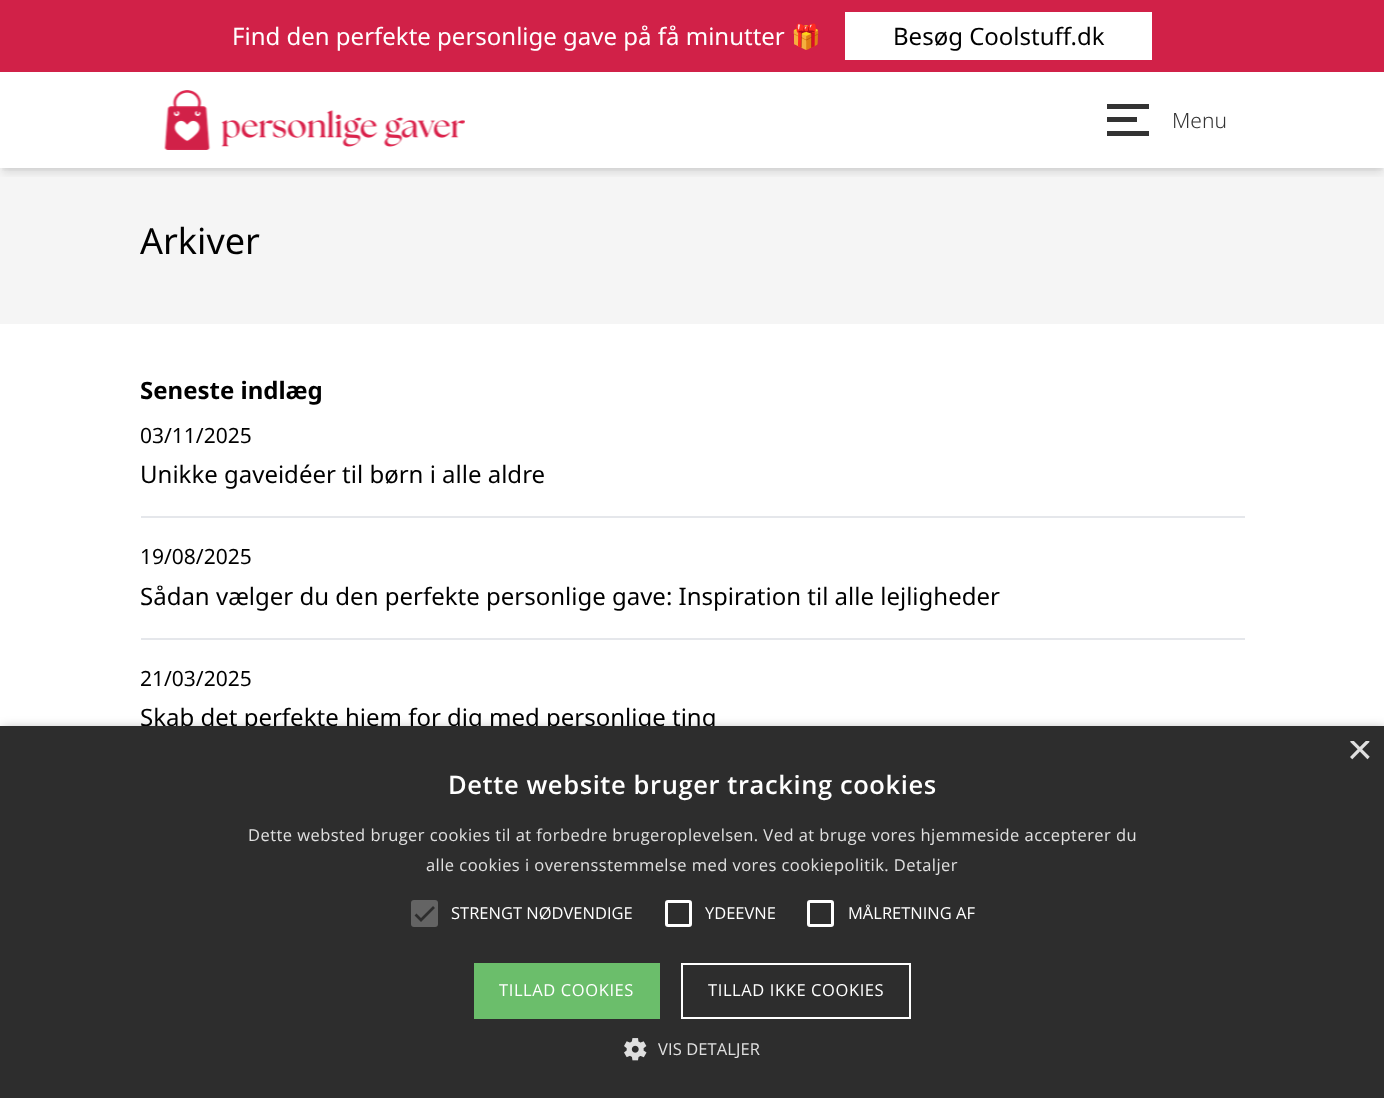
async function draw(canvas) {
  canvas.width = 1384
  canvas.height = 1098
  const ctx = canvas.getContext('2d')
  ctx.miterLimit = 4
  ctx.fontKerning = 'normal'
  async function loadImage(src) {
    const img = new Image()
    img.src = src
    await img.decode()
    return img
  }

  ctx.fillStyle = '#fff'
  ctx.fillRect(0, 0, 1384, 1098)
  ctx.fillStyle = '#f5f5f5'
  ctx.fillRect(0, 168, 1384, 156)
  ctx.save()
  ctx.beginPath()
  ctx.rect(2, 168, 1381, 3)
  ctx.clip()
  ctx.fillStyle = '#0000000f'
  ctx.filter = 'blur(3px)'
  ctx.beginPath()
  ctx.rect(2, 5, 1381, 165)
  ctx.fill()
  ctx.filter = 'none'
  ctx.restore()
  ctx.save()
  ctx.beginPath()
  ctx.rect(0, 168, 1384, 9)
  ctx.clip()
  ctx.fillStyle = '#0000001a'
  ctx.filter = 'blur(4.5px)'
  ctx.beginPath()
  ctx.rect(2, 8, 1381, 165)
  ctx.fill()
  ctx.filter = 'none'
  ctx.restore()
  ctx.fillStyle = '#d12148'
  ctx.fillRect(0, 0, 1384, 72)
  ctx.font = '24px Noto Sans'
  ctx.fillStyle = '#fff'
  ctx.fillText('Find den perfekte personlige gave på få minutter', 232, 45)
  ctx.font = '24px Noto Color Emoji'
  ctx.fillText('🎁', 791, 45)
  ctx.fillRect(845, 12, 307, 48)
  ctx.font = '24px Noto Sans'
  ctx.fillStyle = '#000'
  ctx.fillText('Besøg Coolstuff.dk', 893, 45)
  ctx.drawImage(await loadImage('image0.png'), 164, 90, 301, 60)
  ctx.fillStyle = '#333'
  ctx.fillRect(1107, 104, 42, 5)
  ctx.fillRect(1107, 117, 30, 5)
  ctx.fillRect(1107, 131, 42, 5)
  ctx.font = '300 21px Noto Sans'
  ctx.fillText('Menu', 1172, 128)
  ctx.font = '36px Noto Sans'
  ctx.fillStyle = '#000'
  ctx.fillText('Arkiver', 140, 254)
  ctx.font = 'bold 24px Noto Sans'
  ctx.fillText('Seneste indlæg', 140, 399)
  ctx.fillStyle = '#e5e7eb'
  ctx.fillRect(141, 516, 1104, 2)
  ctx.font = '21px Noto Sans'
  ctx.fillStyle = '#000'
  ctx.fillText('03/11/2025', 140, 443)
  ctx.font = '24px Noto Sans'
  ctx.fillText('Unikke gaveidéer til børn i alle aldre', 140, 483)
  ctx.fillStyle = '#e5e7eb'
  ctx.fillRect(141, 638, 1104, 2)
  ctx.font = '21px Noto Sans'
  ctx.fillStyle = '#000'
  ctx.fillText('19/08/2025', 140, 564)
  ctx.font = '24px Noto Sans'
  ctx.fillText('Sådan vælger du den perfekte personlige gave: Inspiration til alle lejligheder', 140, 605)
  ctx.font = '21px Noto Sans'
  ctx.fillText('21/03/2025', 140, 686)
  ctx.font = '24px Noto Sans'
  ctx.fillText('Skab det perfekte hjem for dig med personlige ting', 140, 726)
  ctx.fillStyle = '#00000059'
  ctx.filter = 'blur(6px)'
  ctx.beginPath()
  ctx.rect(2, 729, 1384, 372)
  ctx.fill()
  ctx.filter = 'none'
  ctx.fillStyle = '#2d2d2d'
  ctx.fillRect(0, 726, 1384, 372)
  ctx.save()
  ctx.beginPath()
  ctx.rect(1347, 741, 23, 23)
  ctx.clip()
  ctx.font = '44px Liberation Sans'
  ctx.fillStyle = '#e0e0e0'
  ctx.fillText('×', 1347, 764)
  ctx.restore()
  ctx.letterSpacing = '0.6px'
  ctx.font = '600 25.5px Open Sans'
  ctx.fillStyle = '#fff'
  ctx.fillText('Dette website bruger tracking cookies', 448, 794)
  ctx.letterSpacing = '0.45px'
  ctx.font = '16.5px Open Sans'
  ctx.fillStyle = '#e0e0e0'
  ctx.fillText('Dette websted bruger cookies til at forbedre brugeroplevelsen. Ved at bruge vores hjemmeside accepterer du', 248, 841)
  ctx.fillText('alle cookies i overensstemmelse med vores cookiepolitik. Detaljer', 426, 871)
  ctx.fillStyle = '#646464'
  ctx.beginPath()
  ctx.roundRect(411, 900, 27, 27, 3)
  ctx.fill()
  ctx.beginPath()
  ctx.moveTo(415.5, 914.5)
  ctx.lineTo(421, 920)
  ctx.lineTo(434, 907)
  ctx.strokeStyle = '#2d2d2d'
  ctx.lineWidth = 2.7
  ctx.stroke()
  ctx.letterSpacing = '0px'
  ctx.fillStyle = '#fff'
  ctx.fillText('STRENGT NØDVENDIGE', 451, 919)
  ctx.beginPath()
  ctx.roundRect(666.5, 901.5, 24, 24, 1.5)
  ctx.strokeStyle = '#fff'
  ctx.lineWidth = 3
  ctx.stroke()
  ctx.fillText('YDEEVNE', 705, 919)
  ctx.beginPath()
  ctx.roundRect(808.5, 901.5, 24, 24, 1.5)
  ctx.stroke()
  ctx.fillText('MÅLRETNING AF', 848, 919)
  ctx.fillStyle = '#6bbe6b'
  ctx.fillRect(474, 963, 186, 56)
  ctx.letterSpacing = '0.6px'
  ctx.fillStyle = '#fff'
  ctx.fillText('TILLAD COOKIES', 499, 996)
  ctx.lineWidth = 2
  ctx.strokeRect(682, 964, 228, 54)
  ctx.fillText('TILLAD IKKE COOKIES', 708, 996)
  ctx.drawImage(await loadImage('image1.png'), 624, 1038, 23, 23)
  ctx.letterSpacing = '0.1px'
  ctx.fillStyle = '#e0e0e0'
  ctx.fillText('VIS DETALJER', 658, 1055)
}

draw(document.querySelector('canvas'))
